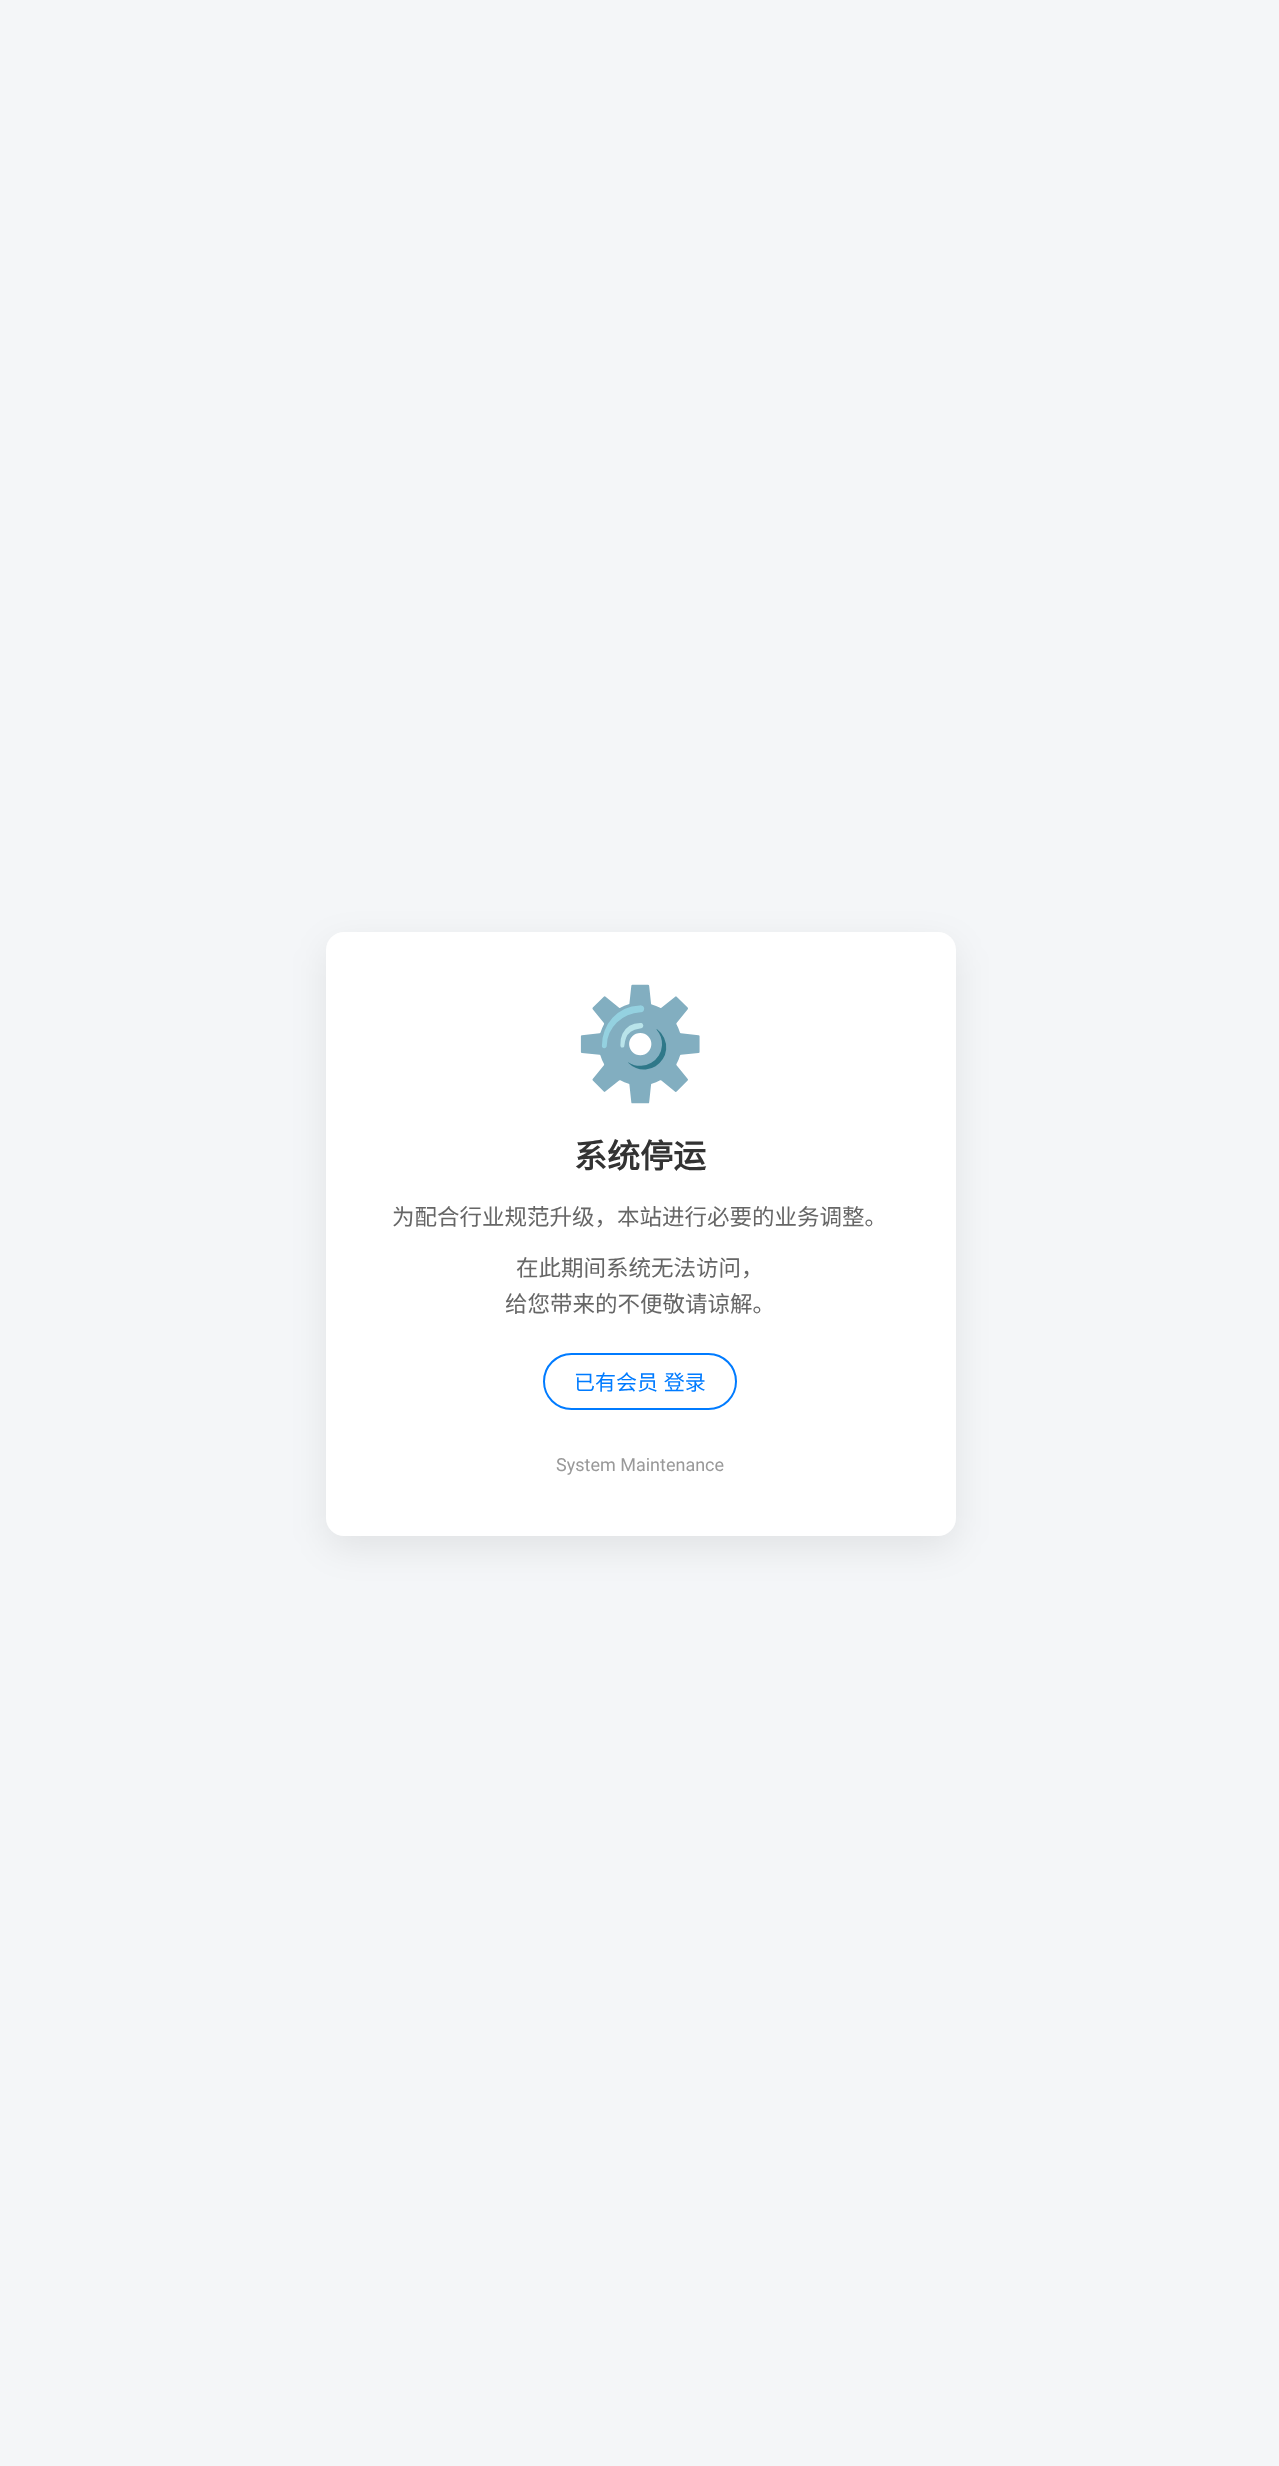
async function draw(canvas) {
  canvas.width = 1279
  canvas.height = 2466
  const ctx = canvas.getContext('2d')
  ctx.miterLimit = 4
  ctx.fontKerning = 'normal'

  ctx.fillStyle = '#f4f6f8'
  ctx.fillRect(0, 0, 1279, 2466)
  ctx.fillStyle = '#00000014'
  ctx.filter = 'blur(18px)'
  ctx.beginPath()
  ctx.roundRect(326, 944, 630, 604, 18)
  ctx.fill()
  ctx.filter = 'none'
  ctx.fillStyle = '#fff'
  ctx.beginPath()
  ctx.roundRect(326, 932, 630, 604, 18)
  ctx.fill()
  ctx.font = '108px Noto Color Emoji'
  ctx.fillStyle = '#333'
  ctx.fillText('⚙️', 573, 1081)
  ctx.font = 'bold 33px Noto Sans CJK SC'
  ctx.fillText('系统停运', 574, 1168)
  ctx.font = '22.5px Noto Sans CJK SC'
  ctx.fillStyle = '#666'
  ctx.fillText('为配合行业规范升级，本站进行必要的业务调整。', 392, 1225)
  ctx.fillText('在此期间系统无法访问，', 516, 1276)
  ctx.fillText('给您带来的不便敬请谅解。', 505, 1312)
  ctx.beginPath()
  ctx.roundRect(544, 1354, 192, 55, 27.5)
  ctx.strokeStyle = '#007bff'
  ctx.lineWidth = 2
  ctx.stroke()
  ctx.wordSpacing = '1px'
  ctx.font = '21px Noto Sans CJK SC'
  ctx.fillStyle = '#007bff'
  ctx.fillText('已有会员 登录', 574, 1390)
  ctx.wordSpacing = '0px'
  ctx.font = '18px Roboto'
  ctx.fillStyle = '#999'
  ctx.fillText('System Maintenance', 556, 1471)
}

draw(document.querySelector('canvas'))
